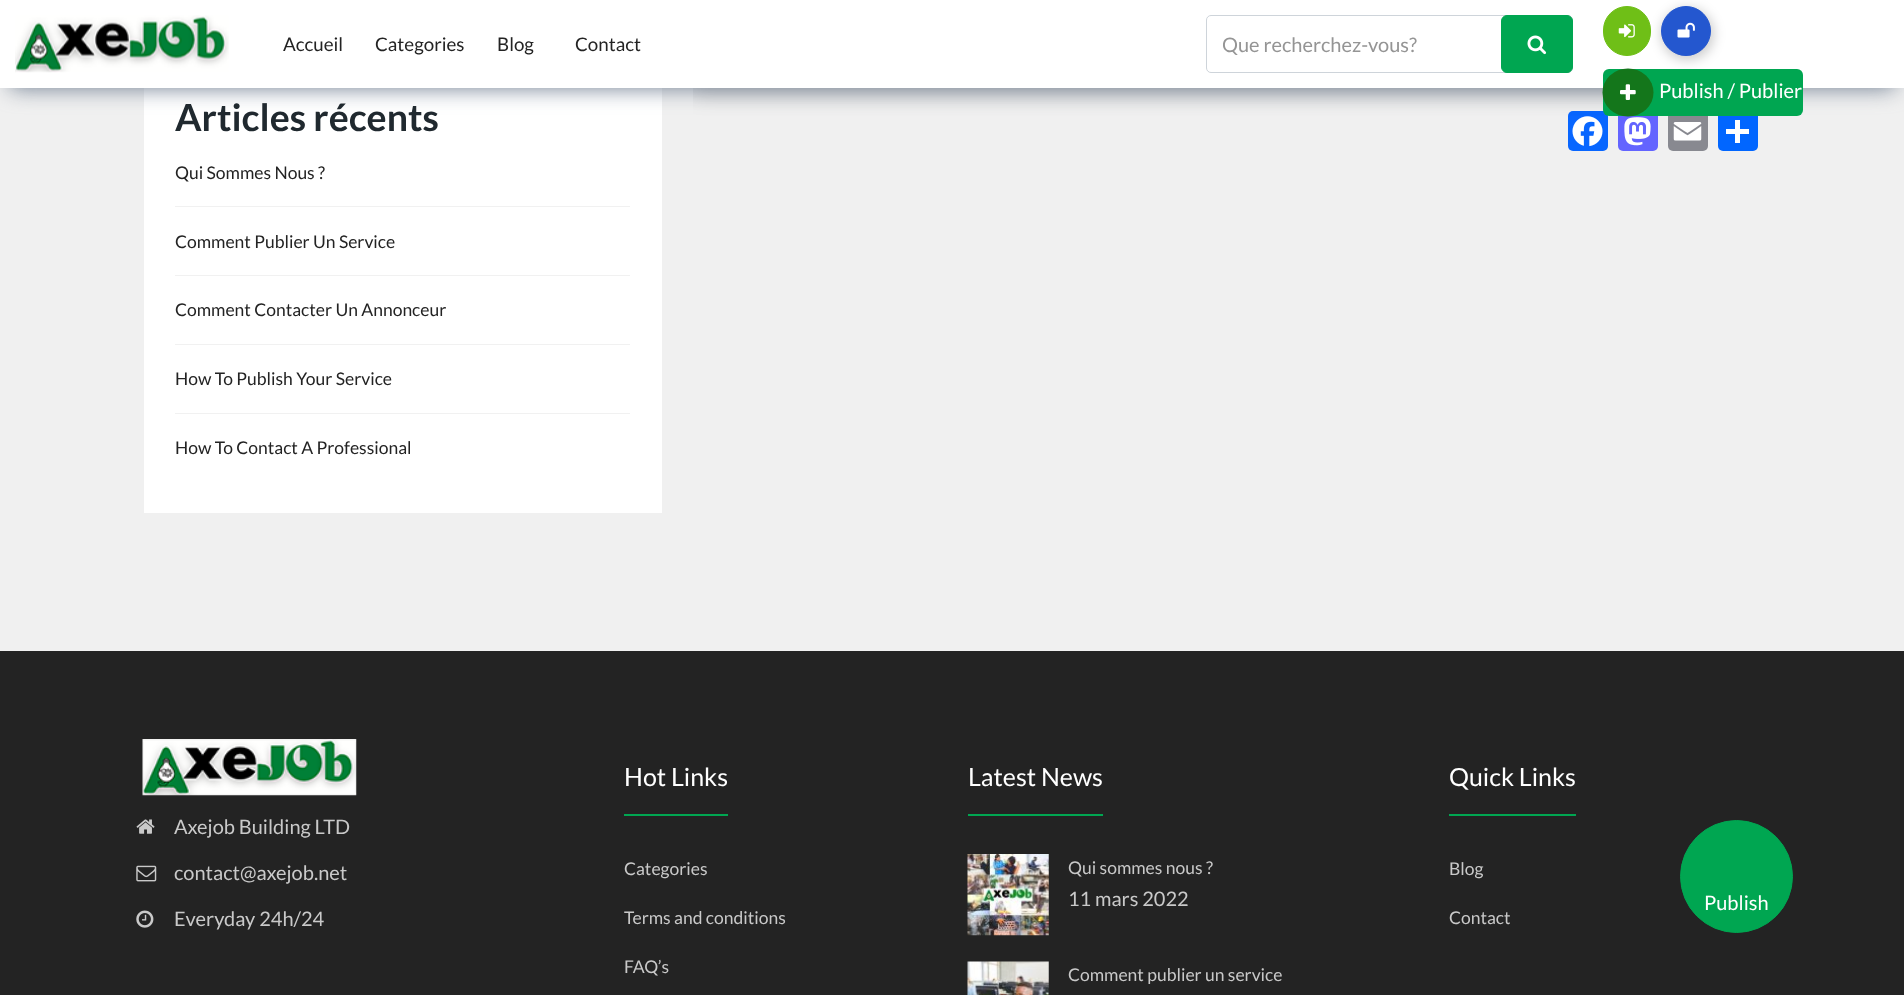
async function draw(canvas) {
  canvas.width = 1904
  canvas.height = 995
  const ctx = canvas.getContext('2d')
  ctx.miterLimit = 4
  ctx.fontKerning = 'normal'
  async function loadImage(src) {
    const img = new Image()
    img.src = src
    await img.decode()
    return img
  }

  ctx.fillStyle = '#f0f0f0'
  ctx.fillRect(0, 0, 1904, 995)
  ctx.fillStyle = '#0866ff'
  ctx.beginPath()
  ctx.roundRect(1568, 111, 40, 40, 5)
  ctx.fill()
  ctx.fillStyle = '#6364ff'
  ctx.beginPath()
  ctx.roundRect(1618, 111, 40, 40, 5)
  ctx.fill()
  ctx.fillStyle = '#888990'
  ctx.beginPath()
  ctx.roundRect(1668, 111, 40, 40, 5)
  ctx.fill()
  ctx.fillStyle = '#0166ff'
  ctx.beginPath()
  ctx.roundRect(1718, 111, 40, 40, 5)
  ctx.fill()
  ctx.save()
  ctx.beginPath()
  ctx.rect(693, 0, 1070, 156)
  ctx.clip()
  ctx.fillStyle = '#00000026'
  ctx.filter = 'blur(10px)'
  ctx.beginPath()
  ctx.roundRect(693, 46, 1070, 50, 6)
  ctx.fill()
  ctx.filter = 'none'
  ctx.restore()
  ctx.drawImage(await loadImage('image5.png'), 1572, 116, 31, 31)
  ctx.drawImage(await loadImage('image6.png'), 1624, 117, 27, 29)
  ctx.fillStyle = '#fff'
  ctx.fillRect(1735, 120, 5, 23)
  ctx.fillRect(144, 88, 518, 425)
  ctx.fillStyle = '#6d7c90'
  ctx.filter = 'blur(11px)'
  ctx.beginPath()
  ctx.rect(10, 20, 1885, 68)
  ctx.fill()
  ctx.filter = 'none'
  ctx.fillStyle = '#fff'
  ctx.fillRect(0, 0, 1904, 88)
  ctx.drawImage(await loadImage('image0.png'), 15, 15, 214, 58)
  ctx.font = '18.75px Lato'
  ctx.fillStyle = '#232323'
  ctx.fillText('Accueil', 283, 51)
  ctx.fillText('Categories', 375, 51)
  ctx.fillText('Blog', 497, 51)
  ctx.fillText('Contact', 575, 51)
  ctx.beginPath()
  ctx.roundRect(1206.5, 15.5, 366, 57, 4.5)
  ctx.strokeStyle = '#ced4da'
  ctx.stroke()
  ctx.save()
  ctx.beginPath()
  ctx.rect(1223, 33, 333, 23)
  ctx.clip()
  ctx.font = '20px Lato'
  ctx.fillStyle = '#959595'
  ctx.fillText('Que recherchez-vous?', 1222, 52)
  ctx.restore()
  ctx.fillStyle = '#00a651'
  ctx.beginPath()
  ctx.roundRect(1501.5, 15.5, 71, 57, 5.5)
  ctx.fill()
  ctx.strokeStyle = '#00a651'
  ctx.stroke()
  ctx.drawImage(await loadImage('image1.png'), 1527, 35, 20, 20)
  ctx.fillStyle = '#6fbf17'
  ctx.beginPath()
  ctx.roundRect(1603.5, 6.5, 47, 49, 23.5)
  ctx.fill()
  ctx.strokeStyle = '#6fbf17'
  ctx.stroke()
  ctx.drawImage(await loadImage('image2.png'), 1618, 24, 17, 14)
  ctx.fillStyle = '#00000033'
  ctx.filter = 'blur(6px)'
  ctx.beginPath()
  ctx.roundRect(1661, 8, 53, 52, 26)
  ctx.fill()
  ctx.filter = 'none'
  ctx.fillStyle = '#2457cf'
  ctx.beginPath()
  ctx.arc(1686, 31, 24.5, 0, 2 * Math.PI)
  ctx.fill()
  ctx.strokeStyle = '#2457cf'
  ctx.stroke()
  ctx.drawImage(await loadImage('image3.png'), 1677, 22, 18, 16)
  ctx.fillStyle = '#00a651'
  ctx.beginPath()
  ctx.roundRect(1603, 69, 200, 47, 6)
  ctx.fill()
  ctx.fillStyle = '#14761b'
  ctx.beginPath()
  ctx.ellipse(1628, 92.5, 25.5, 24, 0, 0, 2 * Math.PI)
  ctx.fill()
  ctx.drawImage(await loadImage('image4.png'), 1620, 84, 16, 16)
  ctx.font = '20px Lato'
  ctx.fillStyle = '#fff'
  ctx.fillText('Publish / Publier', 1659, 98)
  ctx.drawImage(await loadImage('image7.png'), 1673, 122, 29, 19)
  ctx.fillRect(1726, 129, 23, 5)
  ctx.font = 'bold 37.5px Lato'
  ctx.fillStyle = '#20292f'
  ctx.fillText('Articles récents', 175, 131)
  ctx.fillStyle = '#f1f1f1'
  ctx.fillRect(175, 206, 455, 1)
  ctx.font = '17.5px Lato'
  ctx.fillStyle = '#232323'
  ctx.fillText('Qui Sommes Nous ?', 175, 179)
  ctx.fillStyle = '#f1f1f1'
  ctx.fillRect(175, 275, 455, 1)
  ctx.fillStyle = '#232323'
  ctx.fillText('Comment Publier Un Service', 175, 248)
  ctx.fillStyle = '#f1f1f1'
  ctx.fillRect(175, 344, 455, 1)
  ctx.fillStyle = '#232323'
  ctx.fillText('Comment Contacter Un Annonceur', 175, 316)
  ctx.fillStyle = '#f1f1f1'
  ctx.fillRect(175, 413, 455, 1)
  ctx.fillStyle = '#232323'
  ctx.fillText('How To Publish Your Service', 175, 385)
  ctx.fillText('How To Contact A Professional', 175, 454)
  ctx.fillRect(0, 651, 1904, 344)
  ctx.drawImage(await loadImage('image8.png'), 142, 739, 215, 57)
  ctx.drawImage(await loadImage('image9.png'), 136, 819, 19, 15)
  ctx.font = '20px Lato'
  ctx.fillStyle = '#c9c9c9'
  ctx.fillText('Axejob Building LTD', 174, 834)
  ctx.drawImage(await loadImage('image10.png'), 136, 865, 21, 17)
  ctx.fillText('contact@axejob.net', 174, 880)
  ctx.drawImage(await loadImage('image11.png'), 136, 910, 18, 18)
  ctx.fillText('Everyday 24h/24', 174, 926)
  ctx.fillStyle = '#00a651'
  ctx.fillRect(624, 814, 104, 2)
  ctx.font = '25px Lato'
  ctx.fillStyle = '#fff'
  ctx.fillText('Hot Links', 624, 786)
  ctx.font = '17.5px Lato'
  ctx.fillStyle = '#c9c9c9'
  ctx.fillText('Categories', 624, 875)
  ctx.fillText('Terms and conditions', 624, 924)
  ctx.fillText('FAQ’s', 624, 973)
  ctx.fillStyle = '#00a651'
  ctx.fillRect(968, 814, 135, 2)
  ctx.font = '25px Lato'
  ctx.fillStyle = '#fff'
  ctx.fillText('Latest News', 968, 786)
  ctx.drawImage(await loadImage('image12.png'), 967, 854, 82, 82)
  ctx.font = '17.5px Lato'
  ctx.fillStyle = '#c9c9c9'
  ctx.fillText('Qui sommes nous ?', 1068, 874)
  ctx.font = '20px Lato'
  ctx.fillText('11 mars 2022', 1068, 906)
  ctx.drawImage(await loadImage('image13.png'), 967, 961, 82, 34)
  ctx.font = '17.5px Lato'
  ctx.fillText('Comment publier un service', 1068, 981)
  ctx.fillStyle = '#00a651'
  ctx.fillRect(1449, 814, 127, 2)
  ctx.font = '25px Lato'
  ctx.fillStyle = '#fff'
  ctx.fillText('Quick Links', 1449, 786)
  ctx.font = '17.5px Lato'
  ctx.fillStyle = '#c9c9c9'
  ctx.fillText('Blog', 1449, 875)
  ctx.fillText('Contact', 1449, 924)
  ctx.fillStyle = '#00a651'
  ctx.beginPath()
  ctx.arc(1736.5, 876.5, 56, 0, 2 * Math.PI)
  ctx.fill()
  ctx.strokeStyle = '#00a651'
  ctx.stroke()
  ctx.font = '20px Lato'
  ctx.fillStyle = '#fff'
  ctx.fillText('Publish', 1704, 910)
}

draw(document.querySelector('canvas'))
